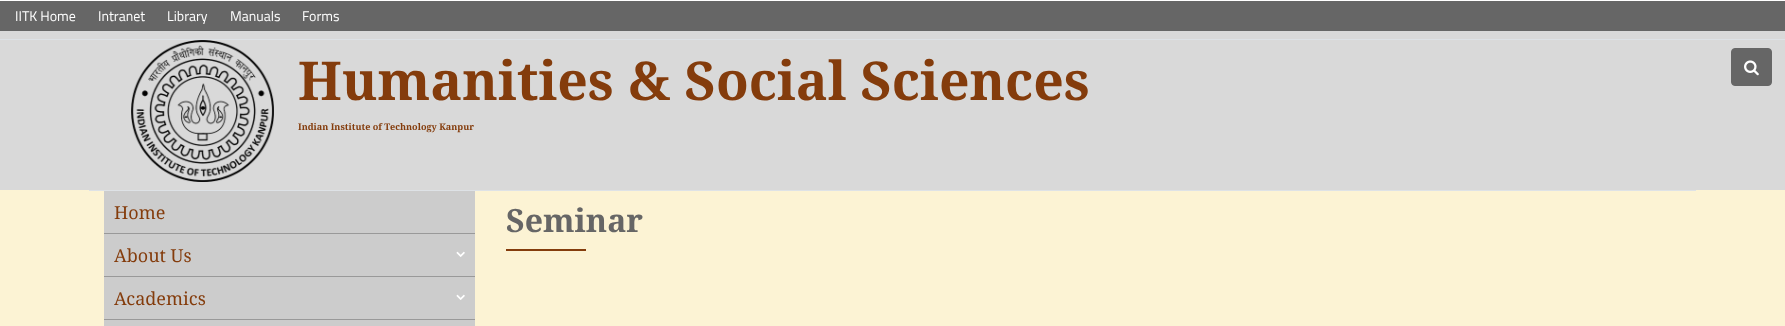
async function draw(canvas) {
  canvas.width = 1785
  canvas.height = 326
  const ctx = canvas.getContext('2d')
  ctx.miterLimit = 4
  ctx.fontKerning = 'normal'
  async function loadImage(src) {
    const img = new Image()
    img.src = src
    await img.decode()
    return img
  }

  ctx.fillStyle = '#fcf3d4'
  ctx.fillRect(0, 0, 1785, 326)
  ctx.fillStyle = '#fff'
  ctx.fillRect(0, 0, 1785, 1)
  ctx.fillStyle = '#666'
  ctx.fillRect(0, 1, 1785, 30)
  ctx.font = '14px Titillium Web'
  ctx.fillStyle = '#fff'
  ctx.fillText('IITK Home', 15, 21)
  ctx.fillText('Intranet', 98, 21)
  ctx.fillText('Library', 167, 21)
  ctx.fillText('Manuals', 230, 21)
  ctx.fillText('Forms', 302, 21)
  ctx.fillStyle = '#d9d9d9'
  ctx.fillRect(0, 31, 1785, 159)
  ctx.fillStyle = '#dee2e6'
  ctx.fillRect(0, 39, 1785, 1)
  ctx.drawImage(await loadImage('image0.png'), 131, 40, 143, 142)
  ctx.font = 'bold 53.5px Noto Serif'
  ctx.fillStyle = '#843c0c'
  ctx.fillText('Humanities & Social Sciences', 298, 100)
  ctx.font = 'bold 9.1px Noto Serif'
  ctx.fillText('Indian Institute of Technology Kanpur', 298, 130)
  ctx.fillStyle = '#666'
  ctx.beginPath()
  ctx.roundRect(1731.5, 48.5, 40, 37, 3.5)
  ctx.fill()
  ctx.strokeStyle = '#666'
  ctx.stroke()
  ctx.drawImage(await loadImage('image1.png'), 1744, 60, 15, 16)
  ctx.fillStyle = '#dee2e6'
  ctx.fillRect(89, 190, 1607, 1)
  ctx.fillStyle = '#ccc'
  ctx.fillRect(104, 191, 371, 135)
  ctx.fillStyle = '#999'
  ctx.fillRect(104, 233, 371, 1)
  ctx.font = '18px Noto Serif'
  ctx.fillStyle = '#843c0c'
  ctx.fillText('Home', 114, 219)
  ctx.fillStyle = '#999'
  ctx.fillRect(104, 276, 371, 1)
  ctx.fillStyle = '#843c0c'
  ctx.fillText('About Us', 114, 262)
  ctx.drawImage(await loadImage('image2.png'), 456, 251, 9, 6)
  ctx.fillStyle = '#999'
  ctx.fillRect(104, 319, 371, 1)
  ctx.fillStyle = '#843c0c'
  ctx.fillText('Academics', 114, 305)
  ctx.drawImage(await loadImage('image2.png'), 456, 294, 9, 6)
  ctx.font = 'bold 32px Noto Serif'
  ctx.fillStyle = '#666'
  ctx.fillText('Seminar', 506, 232)
  ctx.fillStyle = '#843c0c'
  ctx.fillRect(506, 249, 80, 2)
}

draw(document.querySelector('canvas'))
